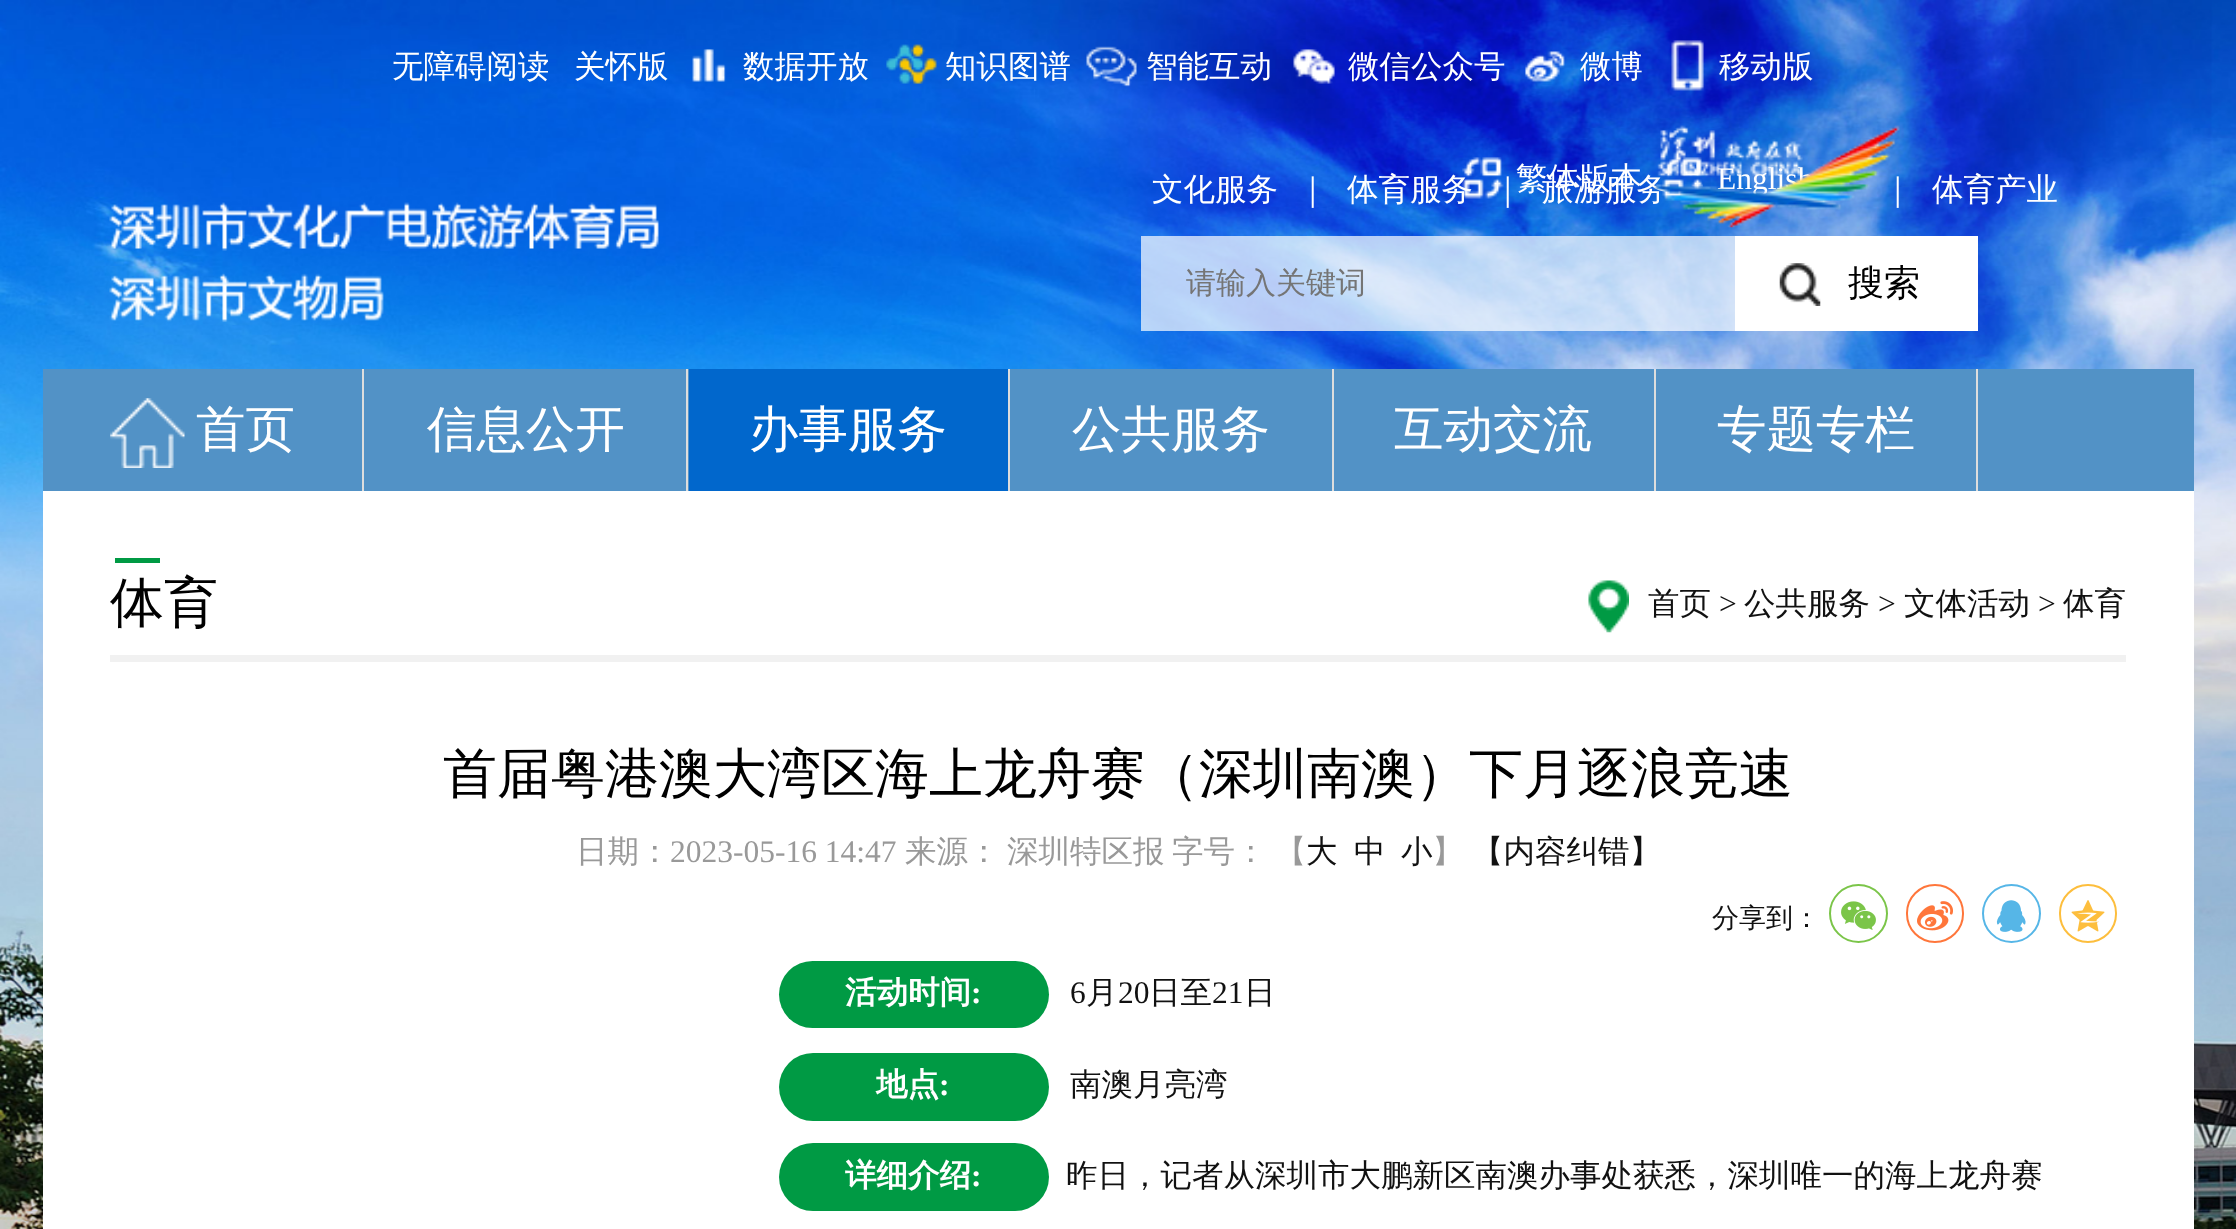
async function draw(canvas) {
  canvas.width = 2236
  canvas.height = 1229
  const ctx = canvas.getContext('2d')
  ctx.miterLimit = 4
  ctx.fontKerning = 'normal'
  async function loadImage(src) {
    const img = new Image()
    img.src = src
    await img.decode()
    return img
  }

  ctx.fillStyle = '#fff'
  ctx.fillRect(0, 0, 2236, 1229)
  ctx.drawImage(await loadImage('image0.png'), 0, 0, 2236, 1229)
  ctx.font = '500 31.5px WenQuanYi Zen Hei'
  ctx.fillText('无障碍阅读', 392, 77)
  ctx.fillText('关怀版', 574, 77)
  ctx.drawImage(await loadImage('image1.png'), 692, 49, 34, 33)
  ctx.fillText('数据开放', 743, 77)
  ctx.drawImage(await loadImage('image2.png'), 886, 44, 51, 40)
  ctx.fillText('知识图谱', 945, 77)
  ctx.drawImage(await loadImage('image3.png'), 1086, 46, 51, 41)
  ctx.fillText('智能互动', 1146, 77)
  ctx.drawImage(await loadImage('image4.png'), 1293, 49, 42, 35)
  ctx.fillText('微信公众号', 1348, 77)
  ctx.drawImage(await loadImage('image5.png'), 1525, 51, 40, 31)
  ctx.fillText('微博', 1580, 77)
  ctx.drawImage(await loadImage('image6.png'), 1671, 40, 33, 51)
  ctx.fillText('移动版', 1719, 77)
  ctx.fillText('体育服务', 1347, 200)
  ctx.drawImage(await loadImage('image7.png'), 1462, 157, 42, 42)
  ctx.fillText('旅游服务', 1542, 200)
  ctx.fillText('繁体版本', 1516, 189)
  ctx.drawImage(await loadImage('image8.png'), 1662, 157, 41, 42)
  ctx.font = '31.5px Liberation Serif'
  ctx.fillText('English', 1717, 189)
  ctx.font = '500 31.5px WenQuanYi Zen Hei'
  ctx.fillText('｜', 1882, 200)
  ctx.drawImage(await loadImage('image9.png'), 1653, 125, 247, 103)
  ctx.drawImage(await loadImage('image10.png'), 109, 202, 550, 120)
  ctx.fillText('文化服务', 1152, 200)
  ctx.fillText('｜', 1297, 200)
  ctx.fillText('｜', 1492, 200)
  ctx.fillText('体育产业', 1932, 200)
  ctx.fillStyle = '#ffffffb3'
  ctx.fillRect(1141, 236, 594, 95)
  ctx.font = '500 30px WenQuanYi Zen Hei'
  ctx.fillStyle = '#757575'
  ctx.fillText('请输入关键词', 1186, 293)
  ctx.fillStyle = '#fff'
  ctx.fillRect(1735, 236, 243, 95)
  ctx.drawImage(await loadImage('image11.png'), 1779, 263, 42, 43)
  ctx.font = '500 36px WenQuanYi Zen Hei'
  ctx.fillStyle = '#000'
  ctx.fillText('搜索', 1848, 295)
  ctx.fillStyle = '#fff'
  ctx.fillRect(43, 491, 2151, 738)
  ctx.fillStyle = '#5292c6'
  ctx.fillRect(43, 369, 2151, 122)
  ctx.fillStyle = '#ddd'
  ctx.fillRect(362, 369, 2, 122)
  ctx.drawImage(await loadImage('image12.png'), 110, 398, 75, 70)
  ctx.font = '500 49.5px WenQuanYi Zen Hei'
  ctx.fillStyle = '#fff'
  ctx.fillText('首页', 196, 446)
  ctx.fillStyle = '#ddd'
  ctx.fillRect(686, 369, 2, 122)
  ctx.fillStyle = '#fff'
  ctx.fillText('信息公开', 427, 446)
  ctx.fillStyle = '#ddd'
  ctx.fillRect(1008, 369, 2, 122)
  ctx.fillStyle = '#0167cc'
  ctx.fillRect(689, 369, 319, 122)
  ctx.fillStyle = '#fff'
  ctx.fillText('办事服务', 749, 446)
  ctx.fillStyle = '#ddd'
  ctx.fillRect(1332, 369, 2, 122)
  ctx.fillStyle = '#fff'
  ctx.fillText('公共服务', 1072, 446)
  ctx.fillStyle = '#ddd'
  ctx.fillRect(1654, 369, 2, 122)
  ctx.fillStyle = '#fff'
  ctx.fillText('互动交流', 1394, 446)
  ctx.fillStyle = '#ddd'
  ctx.fillRect(1976, 369, 2, 122)
  ctx.fillStyle = '#fff'
  ctx.fillText('专题专栏', 1717, 446)
  ctx.fillStyle = '#f1f1f1'
  ctx.fillRect(110, 655, 2016, 7)
  ctx.fillStyle = '#009a44'
  ctx.fillRect(115, 558, 45, 5)
  ctx.font = '500 54px WenQuanYi Zen Hei'
  ctx.fillStyle = '#000'
  ctx.fillText('体育', 110, 621)
  ctx.drawImage(await loadImage('image13.png'), 1588, 580, 41, 53)
  ctx.font = '500 31.5px WenQuanYi Zen Hei'
  ctx.fillStyle = '#111'
  ctx.fillText('首页', 1648, 614)
  ctx.font = '31.5px Liberation Serif'
  ctx.fillText('>', 1719, 614)
  ctx.font = '500 31.5px WenQuanYi Zen Hei'
  ctx.fillText('公共服务', 1744, 614)
  ctx.font = '31.5px Liberation Serif'
  ctx.fillText('>', 1878, 614)
  ctx.font = '500 31.5px WenQuanYi Zen Hei'
  ctx.fillText('文体活动', 1904, 614)
  ctx.font = '31.5px Liberation Serif'
  ctx.fillText('>', 2038, 614)
  ctx.font = '500 31.5px WenQuanYi Zen Hei'
  ctx.fillText('体育', 2063, 614)
  ctx.font = '500 54px WenQuanYi Zen Hei'
  ctx.fillStyle = '#000'
  ctx.fillText('首届粤港澳大湾区海上龙舟赛（深圳南澳）下月逐浪竞速', 443, 792)
  ctx.font = '500 31.5px WenQuanYi Zen Hei'
  ctx.fillStyle = '#999'
  ctx.fillText('日期：', 576, 862)
  ctx.font = '31.5px Liberation Serif'
  ctx.fillText('2023-05-16 14:47', 670, 862)
  ctx.font = '500 31.5px WenQuanYi Zen Hei'
  ctx.fillText('来源：', 905, 862)
  ctx.fillText('深圳特区报', 1007, 862)
  ctx.fillText('字号：', 1172, 862)
  ctx.fillText('【', 1275, 862)
  ctx.fillStyle = '#111'
  ctx.fillText('大', 1306, 862)
  ctx.fillText('中', 1354, 862)
  ctx.fillText('小', 1401, 862)
  ctx.fillStyle = '#999'
  ctx.fillText('】', 1432, 862)
  ctx.fillStyle = '#111'
  ctx.fillText('【内容纠错】', 1472, 862)
  ctx.font = '500 27px WenQuanYi Zen Hei'
  ctx.fillText('分享到：', 1712, 927)
  ctx.beginPath()
  ctx.arc(1858.5, 913.5, 28.5, 0, 2 * Math.PI)
  ctx.strokeStyle = '#7bc549'
  ctx.lineWidth = 2
  ctx.stroke()
  ctx.drawImage(await loadImage('image14.png'), 1841, 901, 35, 29)
  ctx.beginPath()
  ctx.roundRect(1907, 885, 56, 57, 28)
  ctx.strokeStyle = '#ff763b'
  ctx.stroke()
  ctx.drawImage(await loadImage('image15.png'), 1917, 901, 36, 30)
  ctx.beginPath()
  ctx.arc(2011.5, 913.5, 28.5, 0, 2 * Math.PI)
  ctx.strokeStyle = '#56b6e7'
  ctx.stroke()
  ctx.drawImage(await loadImage('image16.png'), 1996, 900, 30, 32)
  ctx.beginPath()
  ctx.roundRect(2060, 885, 56, 57, 28)
  ctx.strokeStyle = '#fdbe3d'
  ctx.stroke()
  ctx.drawImage(await loadImage('image17.png'), 2071, 900, 34, 32)
  ctx.fillStyle = '#009a44'
  ctx.beginPath()
  ctx.roundRect(779, 961, 270, 67, 33.5)
  ctx.fill()
  ctx.font = 'bold 31.5px WenQuanYi Zen Hei'
  ctx.fillStyle = '#fff'
  ctx.fillText('活动时间', 845, 1003)
  ctx.font = 'bold 31.5px Liberation Serif'
  ctx.fillText(':', 971, 1003)
  ctx.font = '31.5px Liberation Serif'
  ctx.fillStyle = '#111'
  ctx.fillText('6', 1070, 1003)
  ctx.font = '500 31.5px WenQuanYi Zen Hei'
  ctx.fillText('月', 1086, 1003)
  ctx.font = '31.5px Liberation Serif'
  ctx.fillText('20', 1118, 1003)
  ctx.font = '500 31.5px WenQuanYi Zen Hei'
  ctx.fillText('日至', 1149, 1003)
  ctx.font = '31.5px Liberation Serif'
  ctx.fillText('21', 1212, 1003)
  ctx.font = '500 31.5px WenQuanYi Zen Hei'
  ctx.fillText('日', 1244, 1003)
  ctx.fillStyle = '#009a44'
  ctx.beginPath()
  ctx.roundRect(779, 1053, 270, 68, 34)
  ctx.fill()
  ctx.font = 'bold 31.5px WenQuanYi Zen Hei'
  ctx.fillStyle = '#fff'
  ctx.fillText('地点', 876, 1095)
  ctx.font = 'bold 31.5px Liberation Serif'
  ctx.fillText(':', 939, 1095)
  ctx.font = '500 31.5px WenQuanYi Zen Hei'
  ctx.fillStyle = '#111'
  ctx.fillText('南澳月亮湾', 1070, 1095)
  ctx.fillStyle = '#009a44'
  ctx.beginPath()
  ctx.roundRect(779, 1143, 270, 68, 34)
  ctx.fill()
  ctx.font = 'bold 31.5px WenQuanYi Zen Hei'
  ctx.fillStyle = '#fff'
  ctx.fillText('详细介绍', 845, 1186)
  ctx.font = 'bold 31.5px Liberation Serif'
  ctx.fillText(':', 971, 1186)
  ctx.font = '500 31.5px WenQuanYi Zen Hei'
  ctx.fillStyle = '#111'
  ctx.fillText('昨日，记者从深圳市大鹏新区南澳办事处获悉，深圳唯一的海上龙舟赛', 1066, 1186)
}

draw(document.querySelector('canvas'))
